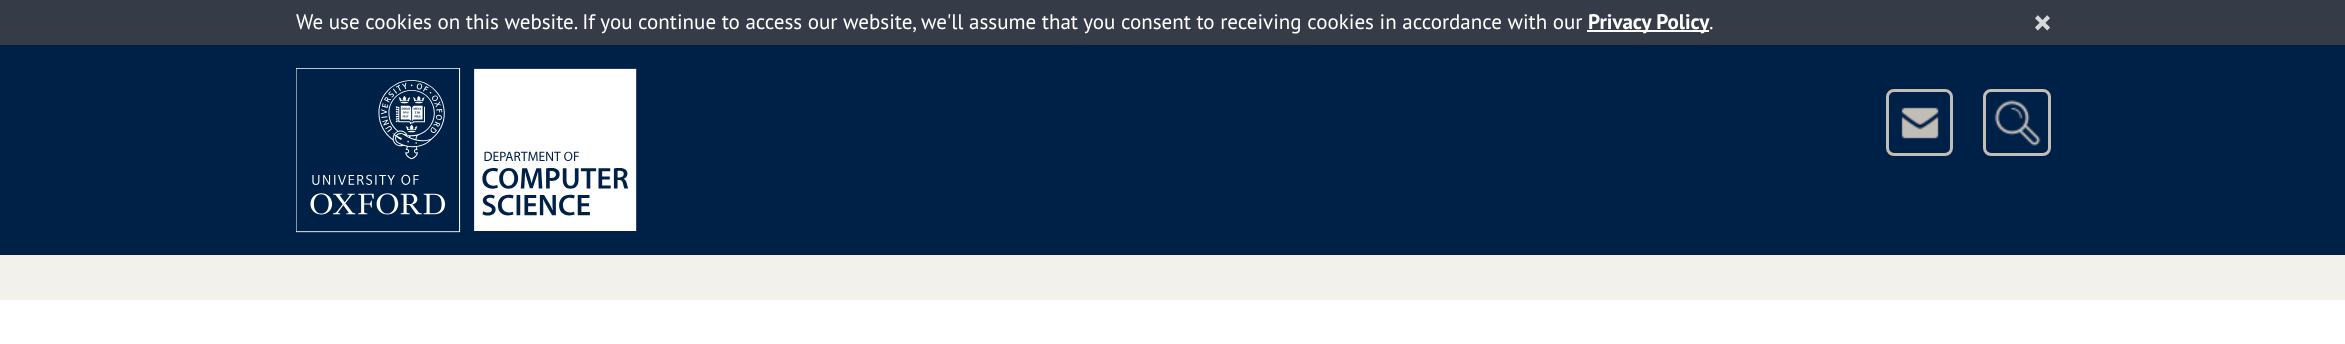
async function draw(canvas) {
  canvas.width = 2345
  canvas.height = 344
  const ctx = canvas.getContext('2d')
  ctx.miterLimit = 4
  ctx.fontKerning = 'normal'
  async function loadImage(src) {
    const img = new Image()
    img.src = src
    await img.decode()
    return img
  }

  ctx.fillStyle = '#f3f1ec'
  ctx.fillRect(0, 0, 2345, 344)
  ctx.fillStyle = '#353c47'
  ctx.fillRect(0, 0, 2345, 45)
  ctx.font = '21px PT Sans'
  ctx.fillStyle = '#fff'
  ctx.fillText('We use cookies on this website. If you continue to access our website, we\'ll assume that you consent to receiving cookies in accordance with our', 296, 29)
  ctx.fillRect(1587, 30, 122, 2)
  ctx.font = 'bold 21px PT Sans'
  ctx.fillText('Privacy Policy', 1588, 29)
  ctx.font = '21px PT Sans'
  ctx.fillText('.', 1709, 29)
  ctx.font = 'bold 36px PT Sans'
  ctx.fillStyle = '#d7d8da'
  ctx.fillText('×', 2033, 35)
  ctx.fillStyle = '#002147'
  ctx.fillRect(0, 45, 2345, 210)
  ctx.drawImage(await loadImage('image0.png'), 296, 68, 341, 165)
  ctx.beginPath()
  ctx.roundRect(1887.5, 90.5, 64, 64, 6.5)
  ctx.strokeStyle = '#c3bdb7'
  ctx.lineWidth = 3
  ctx.stroke()
  ctx.drawImage(await loadImage('image1.png'), 1901, 107, 38, 32)
  ctx.beginPath()
  ctx.roundRect(1984.5, 90.5, 65, 64, 6.5)
  ctx.stroke()
  ctx.drawImage(await loadImage('image2.png'), 1994, 100, 47, 46)
  ctx.fillStyle = '#fff'
  ctx.fillRect(0, 300, 2345, 44)
}

draw(document.querySelector('canvas'))
